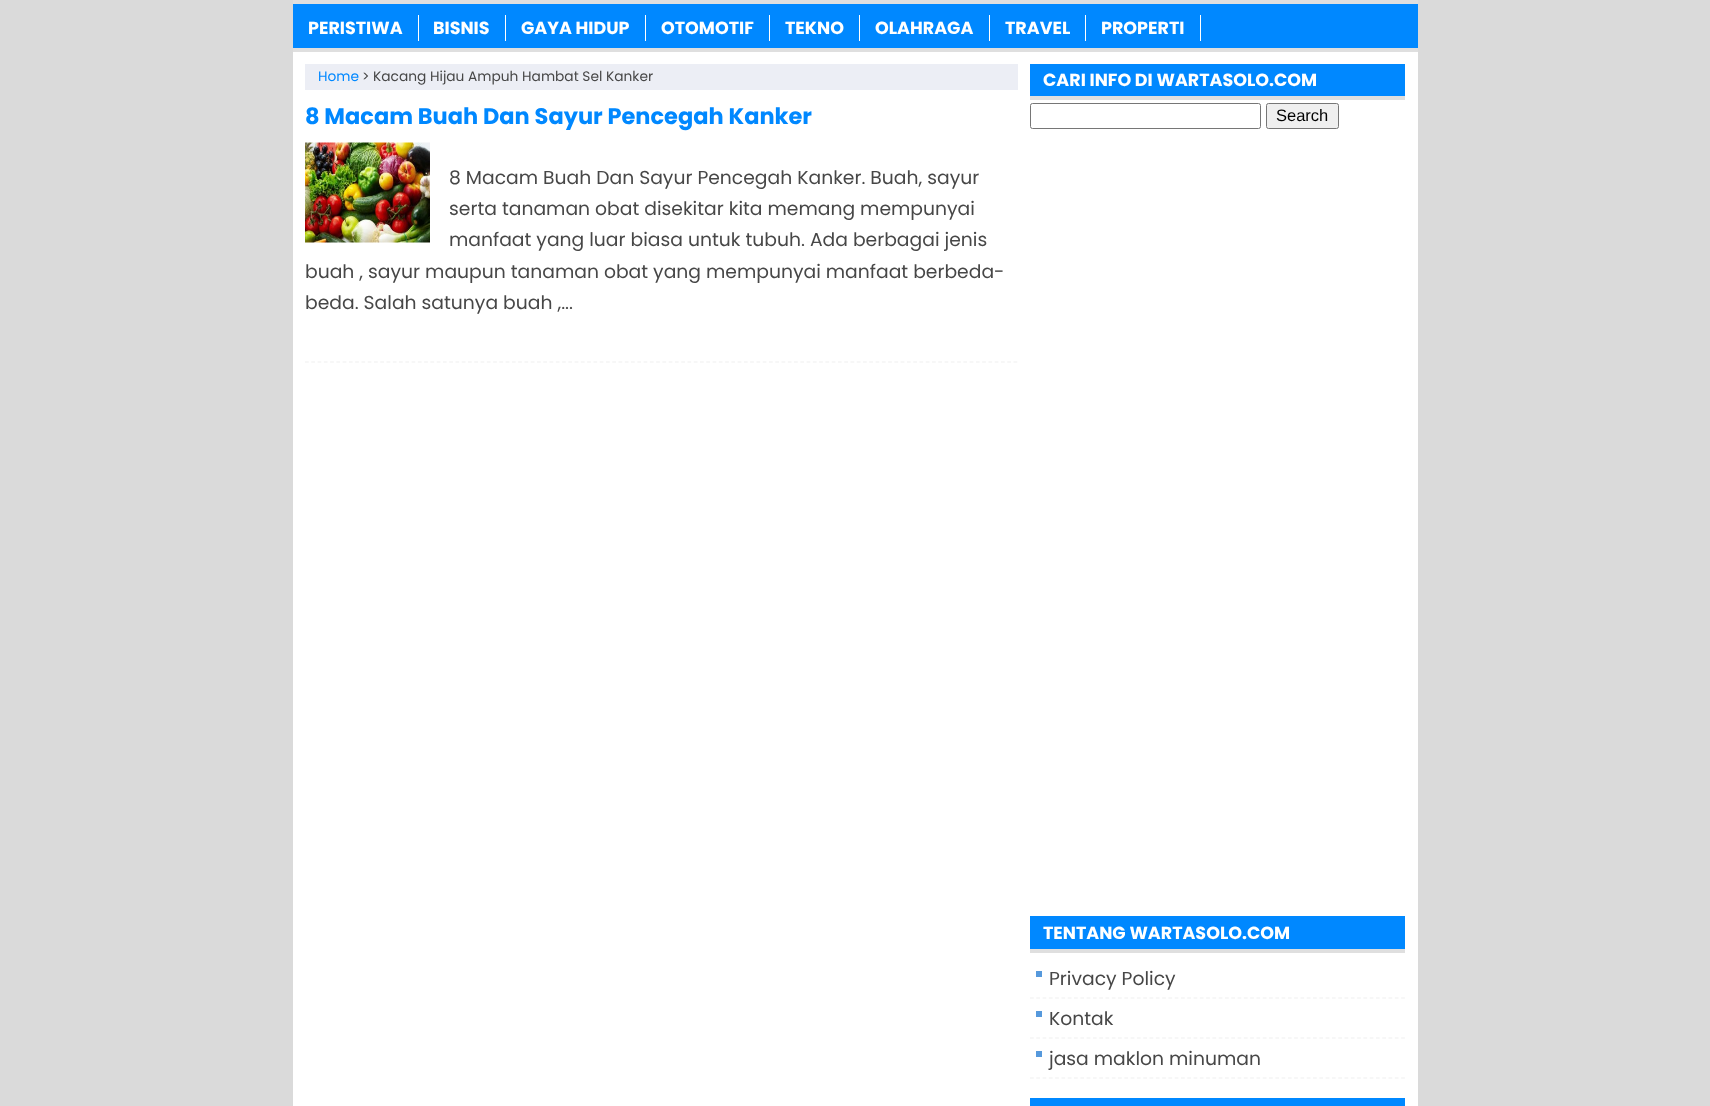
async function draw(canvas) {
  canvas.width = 1710
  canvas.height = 1106
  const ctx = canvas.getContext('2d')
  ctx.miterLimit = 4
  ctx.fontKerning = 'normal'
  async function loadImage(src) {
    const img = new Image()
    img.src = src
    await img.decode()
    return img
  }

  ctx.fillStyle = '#dadada'
  ctx.fillRect(0, 0, 1710, 1106)
  ctx.fillStyle = '#fff'
  ctx.fillRect(293, 52, 1125, 1054)
  ctx.fillStyle = '#08f'
  ctx.fillRect(293, 4, 1125, 44)
  ctx.fillStyle = '#dfdfdf'
  ctx.fillRect(293, 0, 1125, 4)
  ctx.fillRect(293, 48, 1125, 4)
  ctx.fillStyle = '#fff'
  ctx.fillRect(418, 15, 1, 26)
  ctx.font = 'bold 17.5px Poppins'
  ctx.fillText('PERISTIWA', 308, 34)
  ctx.fillRect(505, 15, 1, 26)
  ctx.fillText('BISNIS', 433, 34)
  ctx.fillRect(645, 15, 1, 26)
  ctx.fillText('GAYA HIDUP', 521, 34)
  ctx.fillRect(769, 15, 1, 26)
  ctx.fillText('OTOMOTIF', 661, 34)
  ctx.fillRect(859, 15, 1, 26)
  ctx.fillText('TEKNO', 785, 34)
  ctx.fillRect(989, 15, 1, 26)
  ctx.fillText('OLAHRAGA', 875, 34)
  ctx.fillRect(1085, 15, 1, 26)
  ctx.fillText('TRAVEL', 1005, 34)
  ctx.fillRect(1200, 15, 1, 26)
  ctx.fillText('PROPERTI', 1101, 34)
  ctx.fillStyle = '#eceef5'
  ctx.fillRect(305, 64, 713, 26)
  ctx.font = '13.75px Poppins'
  ctx.fillStyle = '#08f'
  ctx.fillText('Home', 318, 81)
  ctx.fillStyle = '#474747'
  ctx.fillText('> Kacang Hijau Ampuh Hambat Sel Kanker', 362, 81)
  ctx.beginPath()
  ctx.moveTo(305, 362)
  ctx.lineTo(1017.5, 362)
  ctx.strokeStyle = '#efefef'
  ctx.lineWidth = 1.2
  ctx.setLineDash([3.75, 2.52])
  ctx.stroke()
  ctx.font = 'bold 22.5px Poppins'
  ctx.fillStyle = '#08f'
  ctx.fillText('8 Macam Buah Dan Sayur Pencegah Kanker', 305, 124)
  ctx.drawImage(await loadImage('image0.png'), 305, 142, 125, 101)
  ctx.font = '18.75px Poppins'
  ctx.fillStyle = '#474747'
  ctx.fillText('8 Macam Buah Dan Sayur Pencegah Kanker. Buah, sayur', 449, 184)
  ctx.fillText('serta tanaman obat disekitar kita memang mempunyai', 449, 215)
  ctx.fillText('manfaat yang luar biasa untuk tubuh. Ada berbagai jenis', 449, 246)
  ctx.fillText('buah , sayur maupun tanaman obat yang mempunyai manfaat berbeda-', 305, 278)
  ctx.fillText('beda. Salah satunya buah ,...', 305, 309)
  ctx.fillStyle = '#08f'
  ctx.fillRect(1030, 64, 375, 32)
  ctx.fillStyle = '#dfdfdf'
  ctx.fillRect(1030, 96, 375, 4)
  ctx.font = 'bold 17.5px Poppins'
  ctx.fillStyle = '#fff'
  ctx.fillText('CARI INFO DI WARTASOLO.COM', 1043, 86)
  ctx.beginPath()
  ctx.roundRect(1030.5, 103.5, 230, 25, 2)
  ctx.strokeStyle = '#767676'
  ctx.lineWidth = 1
  ctx.setLineDash([])
  ctx.stroke()
  ctx.fillStyle = '#efefef'
  ctx.beginPath()
  ctx.roundRect(1266.5, 103.5, 72, 25, 2)
  ctx.fill()
  ctx.stroke()
  ctx.font = '16.5px Liberation Sans'
  ctx.fillStyle = '#000'
  ctx.fillText('Search', 1276, 121)
  ctx.fillStyle = '#08f'
  ctx.fillRect(1030, 916, 375, 33)
  ctx.fillStyle = '#dfdfdf'
  ctx.fillRect(1030, 949, 375, 4)
  ctx.font = 'bold 17.5px Poppins'
  ctx.fillStyle = '#fff'
  ctx.fillText('TENTANG WARTASOLO.COM', 1043, 939)
  ctx.fillStyle = '#5699dc'
  ctx.fillRect(1036, 971, 6, 6)
  ctx.beginPath()
  ctx.moveTo(1030, 998)
  ctx.lineTo(1405, 998)
  ctx.strokeStyle = '#efefef'
  ctx.lineWidth = 1.2
  ctx.setLineDash([3.75, 2.54])
  ctx.stroke()
  ctx.font = '18.75px Poppins'
  ctx.fillStyle = '#474747'
  ctx.fillText('Privacy Policy', 1049, 985)
  ctx.fillStyle = '#5699dc'
  ctx.fillRect(1036, 1011, 6, 6)
  ctx.beginPath()
  ctx.moveTo(1030, 1038)
  ctx.lineTo(1405, 1038)
  ctx.stroke()
  ctx.fillStyle = '#474747'
  ctx.fillText('Kontak', 1049, 1025)
  ctx.fillStyle = '#5699dc'
  ctx.fillRect(1036, 1051, 6, 6)
  ctx.beginPath()
  ctx.moveTo(1030, 1078)
  ctx.lineTo(1405, 1078)
  ctx.stroke()
  ctx.fillStyle = '#474747'
  ctx.fillText('jasa maklon minuman', 1049, 1065)
  ctx.fillStyle = '#08f'
  ctx.fillRect(1030, 1098, 375, 8)
}

draw(document.querySelector('canvas'))
